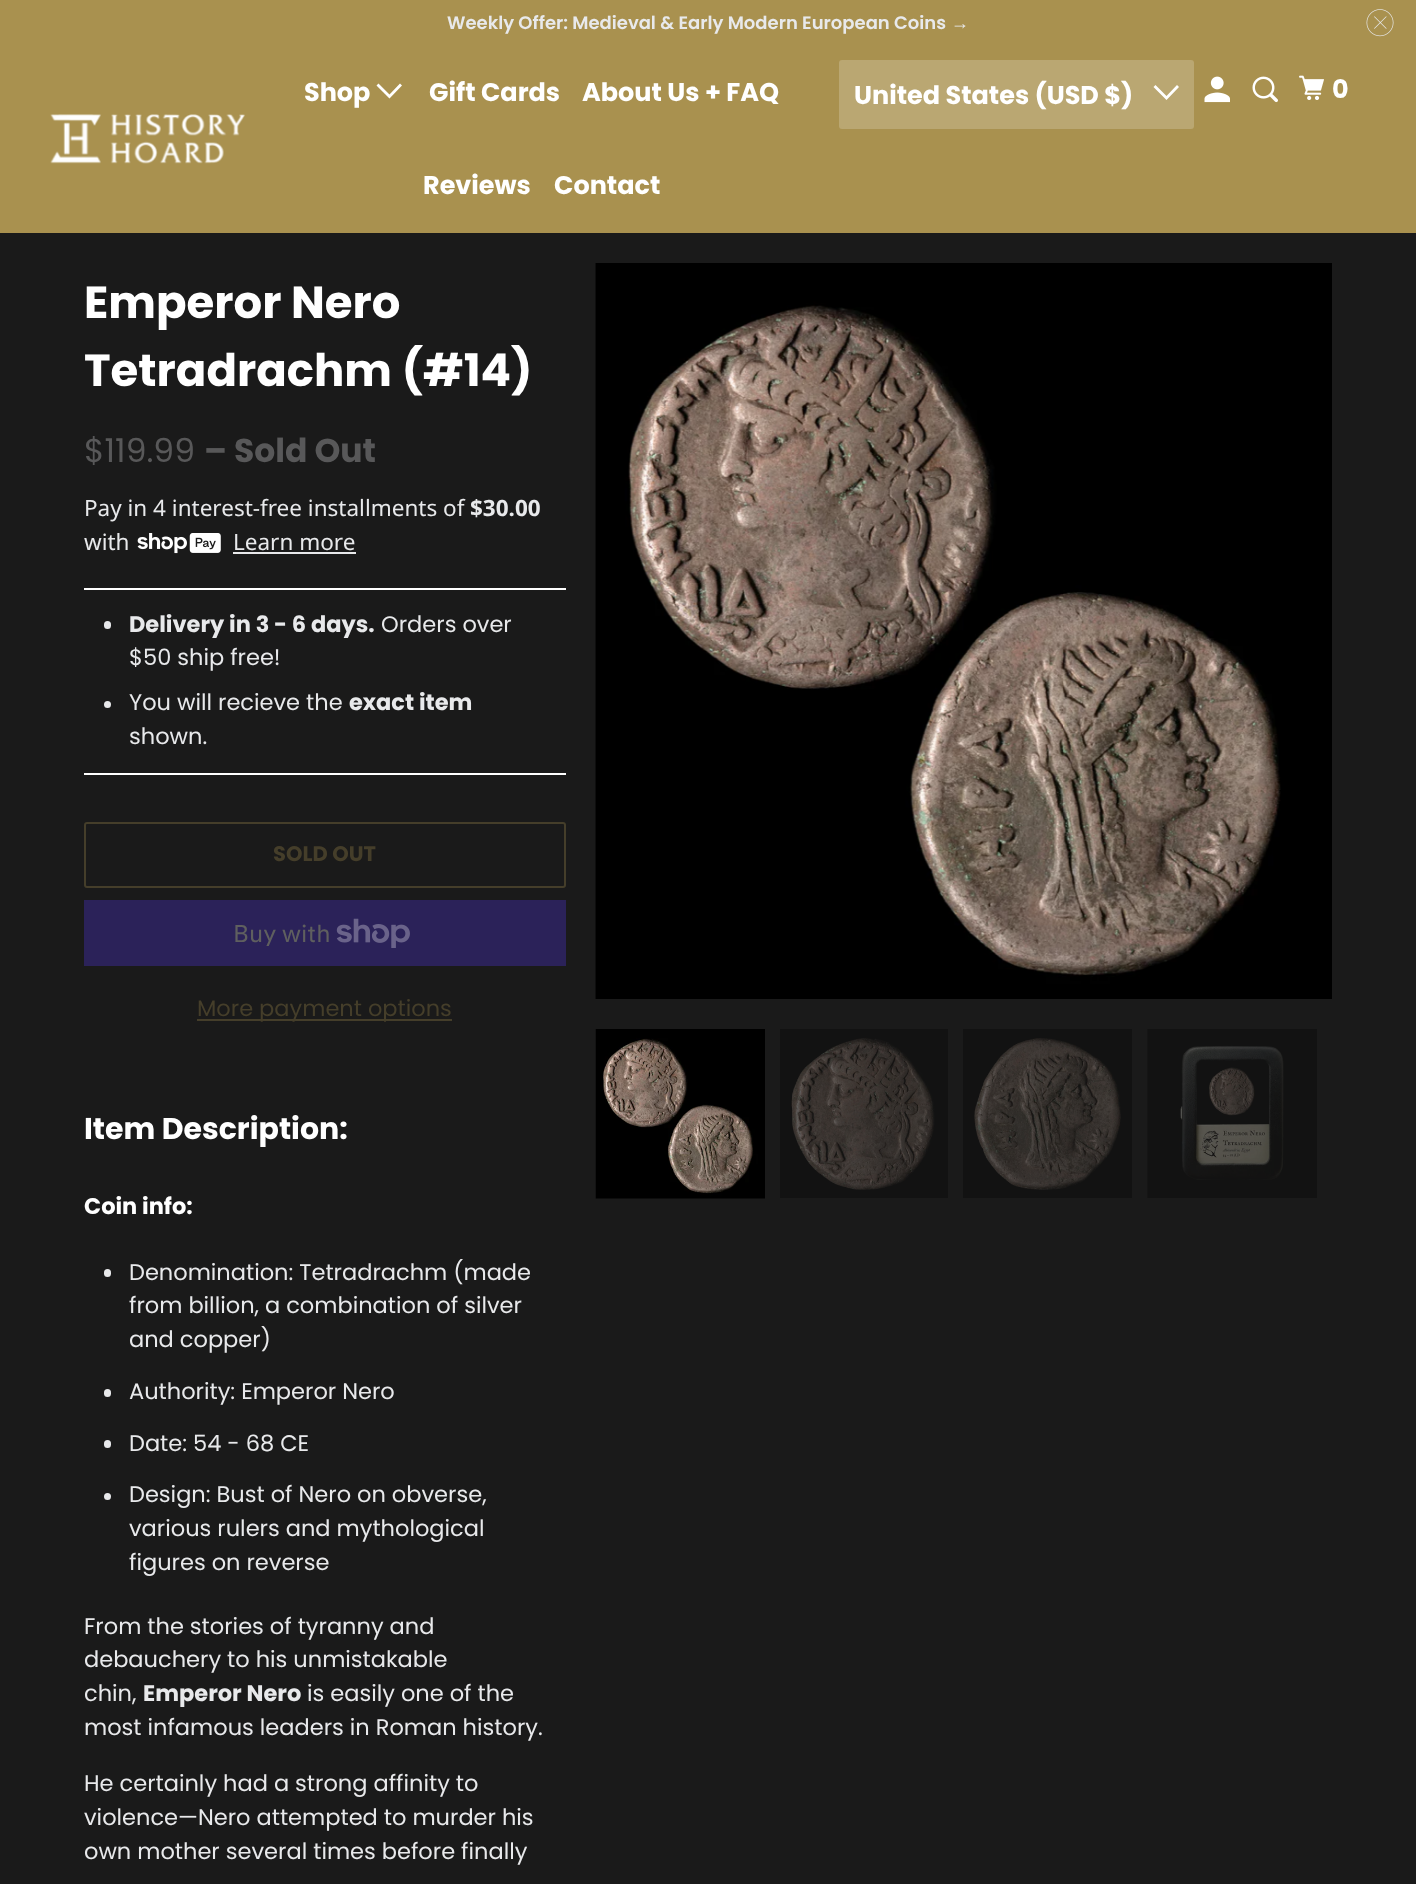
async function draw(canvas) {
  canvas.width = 1416
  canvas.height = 1884
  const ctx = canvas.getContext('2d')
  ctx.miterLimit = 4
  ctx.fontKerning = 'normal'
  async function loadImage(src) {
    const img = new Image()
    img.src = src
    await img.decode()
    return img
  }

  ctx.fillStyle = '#1a1a1a'
  ctx.fillRect(0, 0, 1416, 1884)
  ctx.fillStyle = '#a9914f'
  ctx.fillRect(0, 0, 1416, 233)
  ctx.font = '600 18px Poppins'
  ctx.fillStyle = '#e8e9eb'
  ctx.fillText('Weekly Offer: Medieval & Early Modern European Coins', 447, 29)
  ctx.font = 'bold 18px Liberation Sans'
  ctx.fillText('→', 951, 29)
  ctx.drawImage(await loadImage('image0.png'), 1366, 9, 28, 28)
  ctx.drawImage(await loadImage('image1.png'), 50, 114, 195, 50)
  ctx.font = 'bold 25.5px Poppins'
  ctx.fillStyle = '#fff'
  ctx.fillText('Shop', 304, 101)
  ctx.beginPath()
  ctx.moveTo(383, 92)
  ctx.lineTo(376.5, 85.5)
  ctx.lineTo(378.5, 83.5)
  ctx.lineTo(389.5, 94.5)
  ctx.lineTo(400, 83.5)
  ctx.lineTo(402, 85.5)
  ctx.lineTo(389.5, 98.5)
  ctx.closePath()
  ctx.fill()
  ctx.fillText('Gift Cards', 429, 101)
  ctx.fillText('About Us + FAQ', 582, 101)
  ctx.fillText('Reviews', 423, 194)
  ctx.fillText('Contact', 554, 194)
  ctx.fillStyle = '#baa772'
  ctx.beginPath()
  ctx.roundRect(839, 60, 355, 69, 3)
  ctx.fill()
  ctx.fillStyle = '#fff'
  ctx.fillText('United States (USD $)', 854, 104)
  ctx.beginPath()
  ctx.moveTo(1160, 93.5)
  ctx.lineTo(1153.5, 87)
  ctx.lineTo(1155.5, 85)
  ctx.lineTo(1166.5, 96)
  ctx.lineTo(1177, 85)
  ctx.lineTo(1179, 87)
  ctx.lineTo(1166.5, 100)
  ctx.closePath()
  ctx.fill()
  ctx.drawImage(await loadImage('image2.png'), 1204, 76, 26, 27)
  ctx.drawImage(await loadImage('image3.png'), 1252, 76, 26, 27)
  ctx.drawImage(await loadImage('image4.png'), 1299, 75, 25, 25)
  ctx.fillText('0', 1332, 98)
  ctx.font = 'bold 45px Poppins'
  ctx.fillText('Emperor Nero', 84, 318)
  ctx.fillText('Tetradrachm (#14)', 84, 386)
  ctx.font = '33px Poppins'
  ctx.fillStyle = '#585859'
  ctx.fillText('$119.99', 84, 462)
  ctx.font = 'bold 33px Poppins'
  ctx.fillText('– Sold Out', 204, 462)
  ctx.font = '22.5px Noto Sans'
  ctx.fillStyle = '#e8e9eb'
  ctx.fillText('Pay in 4 interest-free installments of', 84, 516)
  ctx.font = 'bold 22.5px Noto Sans'
  ctx.fillText('$30.00', 470, 516)
  ctx.font = '22.5px Noto Sans'
  ctx.fillText('with', 84, 550)
  ctx.drawImage(await loadImage('image5.png'), 137, 533, 84, 21)
  ctx.fillText('Learn more', 233, 550)
  ctx.fillRect(233, 552, 123, 2)
  ctx.fillStyle = '#fff'
  ctx.fillRect(84, 588, 482, 2)
  ctx.fillStyle = '#e8e9eb'
  ctx.beginPath()
  ctx.roundRect(104, 621, 7, 8, 3.5)
  ctx.fill()
  ctx.font = 'bold 22.5px Poppins'
  ctx.fillText('Delivery in 3 - 6 days.', 129, 632)
  ctx.font = '22.5px Poppins'
  ctx.fillText('Orders over', 381, 632)
  ctx.fillText('$50 ship free!', 129, 665)
  ctx.beginPath()
  ctx.arc(107.5, 704.5, 3.5, 0, 2 * Math.PI)
  ctx.fill()
  ctx.fillText('You will recieve the', 129, 710)
  ctx.font = 'bold 22.5px Poppins'
  ctx.fillText('exact item', 349, 710)
  ctx.font = '22.5px Poppins'
  ctx.fillText('shown.', 129, 744)
  ctx.fillStyle = '#fff'
  ctx.fillRect(84, 773, 482, 2)
  ctx.beginPath()
  ctx.roundRect(85, 823, 480, 64, 2)
  ctx.strokeStyle = '#453e2a'
  ctx.lineWidth = 2
  ctx.stroke()
  ctx.font = 'bold 21px Poppins'
  ctx.fillStyle = '#453e2a'
  ctx.fillText('SOLD OUT', 273, 861)
  ctx.fillStyle = '#2b2259'
  ctx.fillRect(84, 900, 482, 66)
  ctx.font = '24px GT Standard'
  ctx.fillStyle = '#5f5f5f'
  ctx.fillText('Buy with', 233, 942)
  ctx.drawImage(await loadImage('image6.png'), 336, 918, 74, 30)
  ctx.fillStyle = '#453e2a'
  ctx.fillRect(197, 1019, 255, 2)
  ctx.font = '22.5px Poppins'
  ctx.fillText('More payment options', 197, 1016)
  ctx.font = 'bold 30px Poppins'
  ctx.fillStyle = '#fff'
  ctx.fillText('Item Description:', 84, 1139)
  ctx.font = 'bold 22.5px Poppins'
  ctx.fillText('Coin info:', 84, 1214)
  ctx.fillStyle = '#e8e9eb'
  ctx.beginPath()
  ctx.roundRect(104, 1269, 7, 8, 3.5)
  ctx.fill()
  ctx.font = '22.5px Poppins'
  ctx.fillText('Denomination: Tetradrachm (made', 129, 1280)
  ctx.fillText('from billion, a combination of silver', 129, 1313)
  ctx.fillText('and copper)', 129, 1347)
  ctx.beginPath()
  ctx.roundRect(104, 1389, 7, 8, 3.5)
  ctx.fill()
  ctx.fillText('Authority: Emperor Nero', 129, 1399)
  ctx.beginPath()
  ctx.roundRect(104, 1440, 7, 8, 3.5)
  ctx.fill()
  ctx.fillText('Date: 54 - 68 CE', 129, 1451)
  ctx.beginPath()
  ctx.arc(107.5, 1496.5, 3.5, 0, 2 * Math.PI)
  ctx.fill()
  ctx.fillText('Design: Bust of Nero on obverse,', 129, 1502)
  ctx.fillText('various rulers and mythological', 129, 1536)
  ctx.fillText('figures on reverse', 129, 1570)
  ctx.fillText('From the stories of tyranny and', 84, 1634)
  ctx.fillText('debauchery to his unmistakable', 84, 1667)
  ctx.fillText('chin,', 84, 1701)
  ctx.font = 'bold 22.5px Poppins'
  ctx.fillText('Emperor Nero', 143, 1701)
  ctx.font = '22.5px Poppins'
  ctx.fillText('is easily one of the', 307, 1701)
  ctx.fillText('most infamous leaders in Roman history.', 84, 1735)
  ctx.fillText('He certainly had a strong affinity to', 84, 1791)
  ctx.fillText('violence—Nero attempted to murder his', 84, 1825)
  ctx.fillText('own mother several times before finally', 84, 1859)
  ctx.fillStyle = '#000'
  ctx.fillRect(1281, 263, 51, 736)
  ctx.drawImage(await loadImage('image7.png'), 595, 263, 686, 736)
  ctx.drawImage(await loadImage('image8.png'), 595, 1029, 170, 170)
  ctx.drawImage(await loadImage('image9.png'), 780, 1029, 168, 169)
  ctx.drawImage(await loadImage('image10.png'), 963, 1029, 169, 169)
  ctx.drawImage(await loadImage('image11.png'), 1147, 1029, 170, 169)
}

draw(document.querySelector('canvas'))
